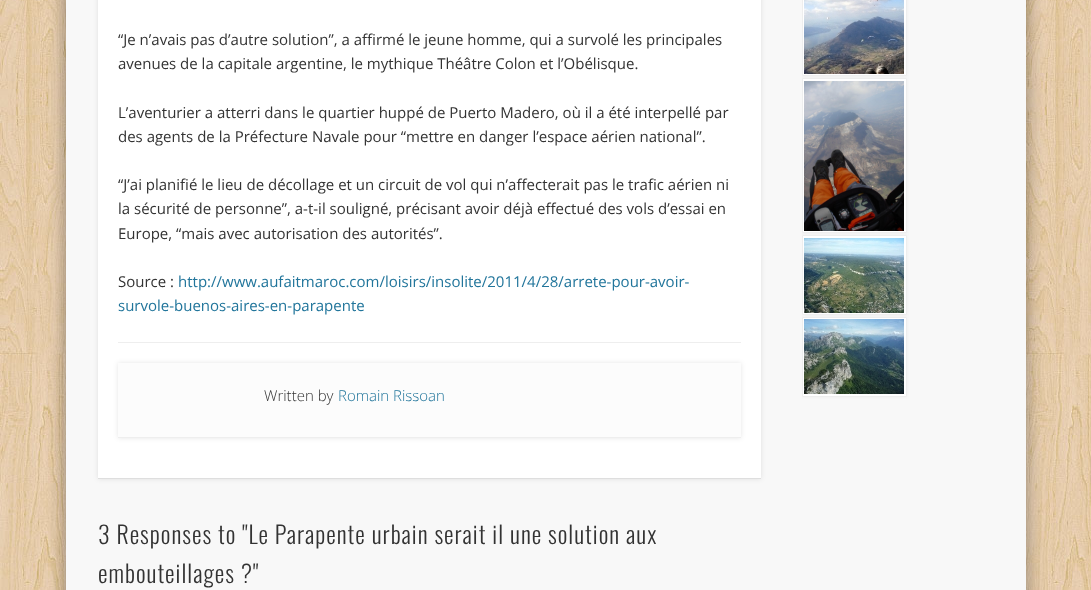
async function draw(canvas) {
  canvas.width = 1091
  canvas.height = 590
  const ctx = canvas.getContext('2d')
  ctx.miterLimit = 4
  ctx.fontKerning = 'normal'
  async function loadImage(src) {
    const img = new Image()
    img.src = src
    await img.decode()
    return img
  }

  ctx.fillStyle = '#fff'
  ctx.fillRect(0, 0, 1091, 590)
  ctx.drawImage(await loadImage('image0.png'), 0, 0, 1091, 590)
  ctx.fillStyle = '#00000066'
  ctx.filter = 'blur(9px)'
  ctx.beginPath()
  ctx.rect(66, -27, 960, 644)
  ctx.fill()
  ctx.filter = 'none'
  ctx.fillStyle = '#f8f8f8'
  ctx.fillRect(66, 0, 960, 590)
  ctx.fillStyle = '#0000001a'
  ctx.filter = 'blur(2.5px)'
  ctx.beginPath()
  ctx.rect(98, -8, 663, 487)
  ctx.fill()
  ctx.filter = 'none'
  ctx.fillStyle = '#fff'
  ctx.fillRect(98, 0, 663, 478)
  ctx.fillStyle = '#dedede'
  ctx.fillRect(98, 478, 663, 1)
  ctx.font = '15px Open Sans'
  ctx.fillStyle = '#333'
  ctx.fillText('“Je n’avais pas d’autre solution”, a affirmé le jeune homme, qui a survolé les principales', 118, 45)
  ctx.fillText('avenues de la capitale argentine, le mythique Théâtre Colon et l’Obélisque.', 118, 69)
  ctx.fillText('L’aventurier a atterri dans le quartier huppé de Puerto Madero, où il a été interpellé par', 118, 118)
  ctx.fillText('des agents de la Préfecture Navale pour “mettre en danger l’espace aérien national”.', 118, 142)
  ctx.fillText('“J’ai planifié le lieu de décollage et un circuit de vol qui n’affecterait pas le trafic aérien ni', 118, 190)
  ctx.fillText('la sécurité de personne”, a-t-il souligné, précisant avoir déjà effectué des vols d’essai en', 118, 214)
  ctx.fillText('Europe, “mais avec autorisation des autorités”.', 118, 239)
  ctx.fillText('Source :', 118, 287)
  ctx.fillStyle = '#21759b'
  ctx.fillText('http://www.aufaitmaroc.com/loisirs/insolite/2011/4/28/arrete-pour-avoir-', 178, 287)
  ctx.fillText('survole-buenos-aires-en-parapente', 118, 311)
  ctx.fillStyle = '#eee'
  ctx.fillRect(118, 342, 623, 1)
  ctx.fillStyle = '#0000001a'
  ctx.filter = 'blur(2.5px)'
  ctx.beginPath()
  ctx.rect(118, 363, 623, 75)
  ctx.fill()
  ctx.filter = 'none'
  ctx.fillStyle = '#fcfcfc'
  ctx.fillRect(118, 363, 623, 74)
  ctx.fillStyle = '#eee'
  ctx.fillRect(118, 437, 623, 1)
  ctx.font = '300 15px Open Sans'
  ctx.fillStyle = '#333'
  ctx.fillText('Written by', 264, 401)
  ctx.fillStyle = '#21759b'
  ctx.fillText('Romain Rissoan', 338, 401)
  ctx.letterSpacing = '1px'
  ctx.font = '300 24px Oswald'
  ctx.fillStyle = '#333'
  ctx.fillText('3 Responses to "Le Parapente urbain serait il une solution aux', 98, 544)
  ctx.fillText('embouteillages ?"', 98, 583)
  ctx.save()
  ctx.beginPath()
  ctx.rect(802, 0, 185, 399)
  ctx.clip()
  ctx.fillStyle = '#eee'
  ctx.filter = 'blur(1.5px)'
  ctx.beginPath()
  ctx.rect(802, -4, 105, 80)
  ctx.fill()
  ctx.filter = 'none'
  ctx.restore()
  ctx.fillStyle = '#fff'
  ctx.beginPath()
  ctx.rect(802.5, -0.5, 104, 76)
  ctx.fill()
  ctx.strokeStyle = '#eee'
  ctx.stroke()
  ctx.drawImage(await loadImage('image1.png'), 804, 0, 100, 74)
  ctx.save()
  ctx.beginPath()
  ctx.rect(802, 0, 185, 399)
  ctx.clip()
  ctx.fillStyle = '#eee'
  ctx.filter = 'blur(1.5px)'
  ctx.beginPath()
  ctx.rect(802, 78, 105, 155)
  ctx.fill()
  ctx.filter = 'none'
  ctx.restore()
  ctx.beginPath()
  ctx.rect(802.5, 78.5, 104, 154)
  ctx.fill()
  ctx.stroke()
  ctx.drawImage(await loadImage('image2.png'), 804, 81, 100, 150)
  ctx.save()
  ctx.beginPath()
  ctx.rect(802, 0, 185, 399)
  ctx.clip()
  ctx.fillStyle = '#eee'
  ctx.filter = 'blur(1.5px)'
  ctx.beginPath()
  ctx.rect(802, 235, 105, 80)
  ctx.fill()
  ctx.filter = 'none'
  ctx.restore()
  ctx.beginPath()
  ctx.rect(802.5, 235.5, 104, 79)
  ctx.fill()
  ctx.stroke()
  ctx.drawImage(await loadImage('image3.png'), 804, 238, 100, 75)
  ctx.save()
  ctx.beginPath()
  ctx.rect(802, 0, 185, 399)
  ctx.clip()
  ctx.fillStyle = '#eee'
  ctx.filter = 'blur(1.5px)'
  ctx.beginPath()
  ctx.rect(802, 317, 105, 80)
  ctx.fill()
  ctx.filter = 'none'
  ctx.restore()
  ctx.beginPath()
  ctx.rect(802.5, 317.5, 104, 79)
  ctx.fill()
  ctx.stroke()
  ctx.drawImage(await loadImage('image4.png'), 804, 319, 100, 75)
}

draw(document.querySelector('canvas'))
